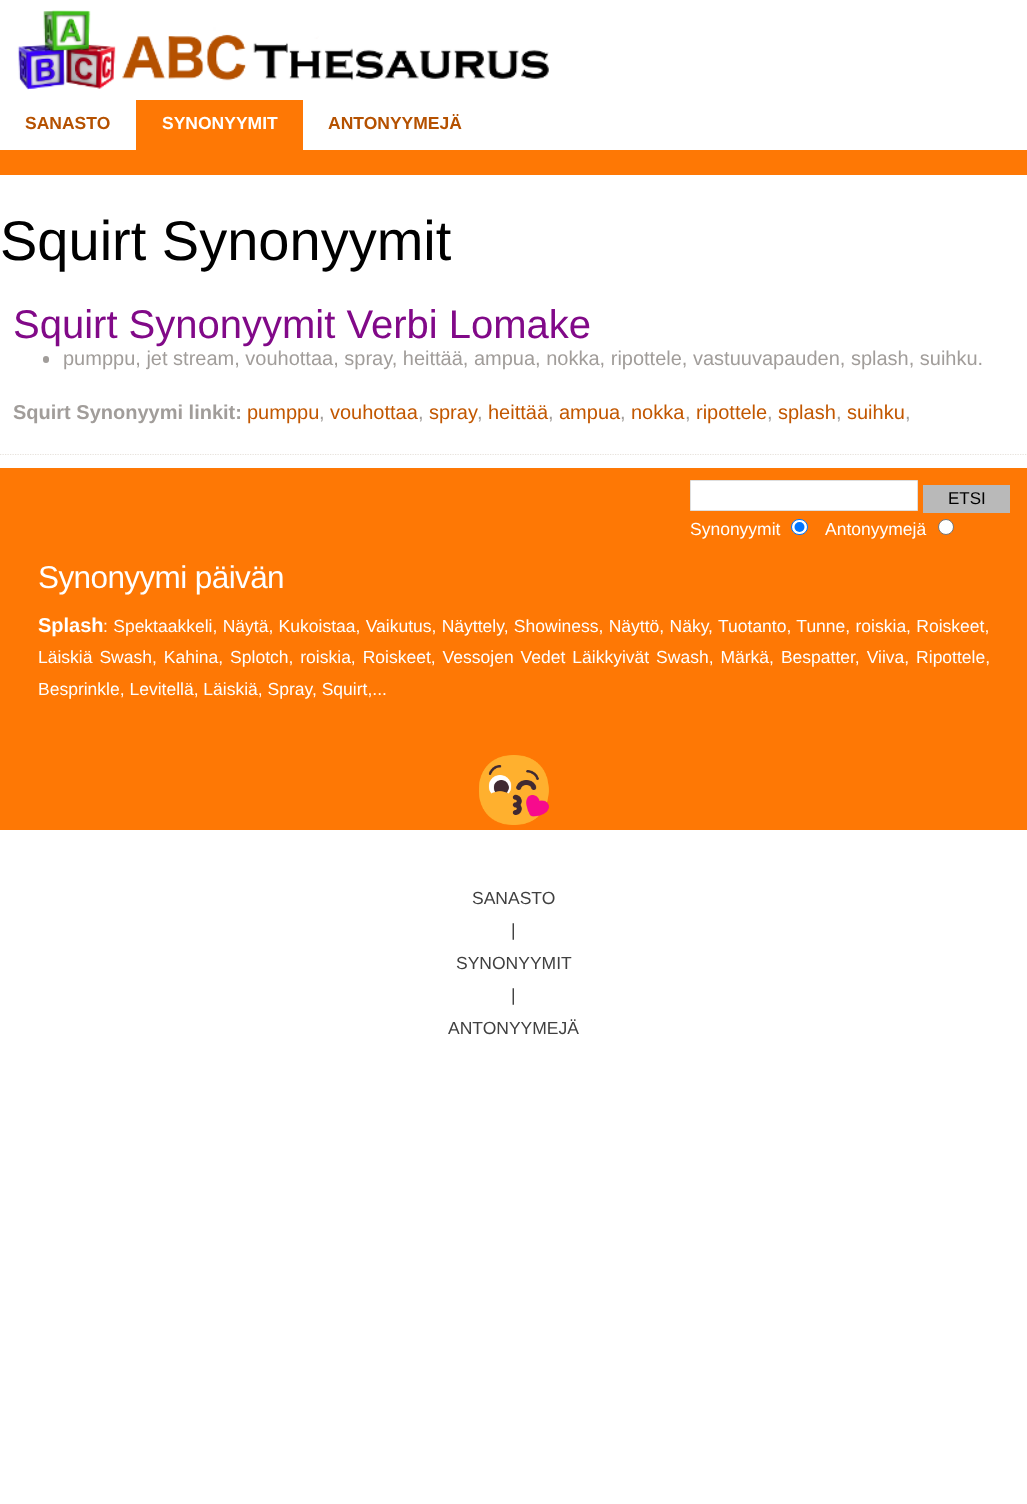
async function draw(canvas) {
  canvas.width = 1027
  canvas.height = 1504
  const ctx = canvas.getContext('2d')
  ctx.miterLimit = 4
  ctx.fontKerning = 'normal'
  async function loadImage(src) {
    const img = new Image()
    img.src = src
    await img.decode()
    return img
  }

  ctx.fillStyle = '#fff'
  ctx.fillRect(0, 0, 1027, 1504)
  ctx.fillStyle = '#fe7805'
  ctx.fillRect(0, 150, 1027, 25)
  ctx.drawImage(await loadImage('image0.png'), 17, 10, 532, 80)
  ctx.font = 'bold 17.5px Liberation Sans'
  ctx.fillStyle = '#b55100'
  ctx.fillText('SANASTO', 25, 129)
  ctx.fillStyle = '#fe7805'
  ctx.fillRect(136, 100, 167, 50)
  ctx.fillStyle = '#fff'
  ctx.fillText('SYNONYYMIT', 162, 129)
  ctx.fillStyle = '#b55100'
  ctx.fillText('ANTONYYMEJÄ', 328, 129)
  ctx.beginPath()
  ctx.moveTo(0, 454.5)
  ctx.lineTo(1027.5, 454.5)
  ctx.strokeStyle = '#e7e2dc'
  ctx.lineWidth = 1.2
  ctx.setLineDash([1.25, 1.25])
  ctx.stroke()
  ctx.font = '56px Liberation Sans'
  ctx.fillStyle = '#000'
  ctx.fillText('Squirt Synonyymit', 0, 260)
  ctx.font = '40px Liberation Sans'
  ctx.fillStyle = '#810988'
  ctx.fillText('Squirt Synonyymit Verbi Lomake', 13, 338)
  ctx.fillStyle = '#a19d9a'
  ctx.beginPath()
  ctx.roundRect(43, 356, 6, 7, 3)
  ctx.fill()
  ctx.font = '20px Liberation Sans'
  ctx.fillText('pumppu, jet stream, vouhottaa, spray, heittää, ampua, nokka, ripottele, vastuuvapauden, splash, suihku.', 63, 365)
  ctx.font = 'bold 20px Liberation Sans'
  ctx.fillText('Squirt Synonyymi linkit:', 13, 419)
  ctx.font = '20px Liberation Sans'
  ctx.fillStyle = '#c25700'
  ctx.fillText('pumppu', 247, 419)
  ctx.fillStyle = '#a19d9a'
  ctx.fillText(',', 319, 419)
  ctx.fillStyle = '#c25700'
  ctx.fillText('vouhottaa', 330, 419)
  ctx.fillStyle = '#a19d9a'
  ctx.fillText(',', 418, 419)
  ctx.fillStyle = '#c25700'
  ctx.fillText('spray', 429, 419)
  ctx.fillStyle = '#a19d9a'
  ctx.fillText(',', 477, 419)
  ctx.fillStyle = '#c25700'
  ctx.fillText('heittää', 488, 419)
  ctx.fillStyle = '#a19d9a'
  ctx.fillText(',', 548, 419)
  ctx.fillStyle = '#c25700'
  ctx.fillText('ampua', 559, 419)
  ctx.fillStyle = '#a19d9a'
  ctx.fillText(',', 620, 419)
  ctx.fillStyle = '#c25700'
  ctx.fillText('nokka', 631, 419)
  ctx.fillStyle = '#a19d9a'
  ctx.fillText(',', 685, 419)
  ctx.fillStyle = '#c25700'
  ctx.fillText('ripottele', 696, 419)
  ctx.fillStyle = '#a19d9a'
  ctx.fillText(',', 767, 419)
  ctx.fillStyle = '#c25700'
  ctx.fillText('splash', 778, 419)
  ctx.fillStyle = '#a19d9a'
  ctx.fillText(',', 836, 419)
  ctx.fillStyle = '#c25700'
  ctx.fillText('suihku', 847, 419)
  ctx.fillStyle = '#a19d9a'
  ctx.fillText(',', 905, 419)
  ctx.fillStyle = '#fe7805'
  ctx.fillRect(0, 468, 1027, 362)
  ctx.fillStyle = '#fff'
  ctx.beginPath()
  ctx.rect(690.5, 480.5, 227, 30)
  ctx.fill()
  ctx.strokeStyle = '#dedede'
  ctx.lineWidth = 1
  ctx.setLineDash([])
  ctx.stroke()
  ctx.fillStyle = '#b9b9b9'
  ctx.fillRect(923, 485, 87, 28)
  ctx.font = '17px Liberation Sans'
  ctx.fillStyle = '#000'
  ctx.fillText('ETSI', 948, 504)
  ctx.font = '17.5px Liberation Sans'
  ctx.fillStyle = '#fff'
  ctx.fillText('Synonyymit', 690, 535)
  ctx.beginPath()
  ctx.roundRect(791.5, 519.5, 16, 15, 7.5)
  ctx.fill()
  ctx.strokeStyle = '#0075ff'
  ctx.stroke()
  ctx.fillStyle = '#0075ff'
  ctx.beginPath()
  ctx.arc(799.5, 527, 5, 0, 2 * Math.PI)
  ctx.fill()
  ctx.fillStyle = '#fff'
  ctx.fillText('Antonyymejä', 825, 535)
  ctx.beginPath()
  ctx.arc(946, 527, 7.5, 0, 2 * Math.PI)
  ctx.fill()
  ctx.strokeStyle = '#767676'
  ctx.stroke()
  ctx.letterSpacing = '-0.6px'
  ctx.font = '31.5px Liberation Sans'
  ctx.fillText('Synonyymi päivän', 38, 588)
  ctx.letterSpacing = '0px'
  ctx.font = 'bold 20px Liberation Sans'
  ctx.fillText('Splash', 38, 632)
  ctx.wordSpacing = '0.5px'
  ctx.font = '17.5px Liberation Sans'
  ctx.fillText(': Spektaakkeli, Näytä, Kukoistaa, Vaikutus, Näyttely, Showiness, Näyttö, Näky, Tuotanto, Tunne, roiskia, Roiskeet,', 103, 632)
  ctx.wordSpacing = '2.1px'
  ctx.fillText('Läiskiä Swash, Kahina, Splotch, roiskia, Roiskeet, Vessojen Vedet Läikkyivät Swash, Märkä, Bespatter, Viiva, Ripottele,', 38, 663)
  ctx.wordSpacing = '0px'
  ctx.fillText('Besprinkle, Levitellä, Läiskiä, Spray, Squirt,...', 38, 695)
  ctx.drawImage(await loadImage('image1.png'), 479, 755, 70, 70)
  ctx.fillStyle = '#404040'
  ctx.fillText('SANASTO', 472, 904)
  ctx.fillText('|', 511, 936)
  ctx.fillText('SYNONYYMIT', 456, 969)
  ctx.fillText('|', 511, 1001)
  ctx.fillText('ANTONYYMEJÄ', 448, 1034)
}

draw(document.querySelector('canvas'))
